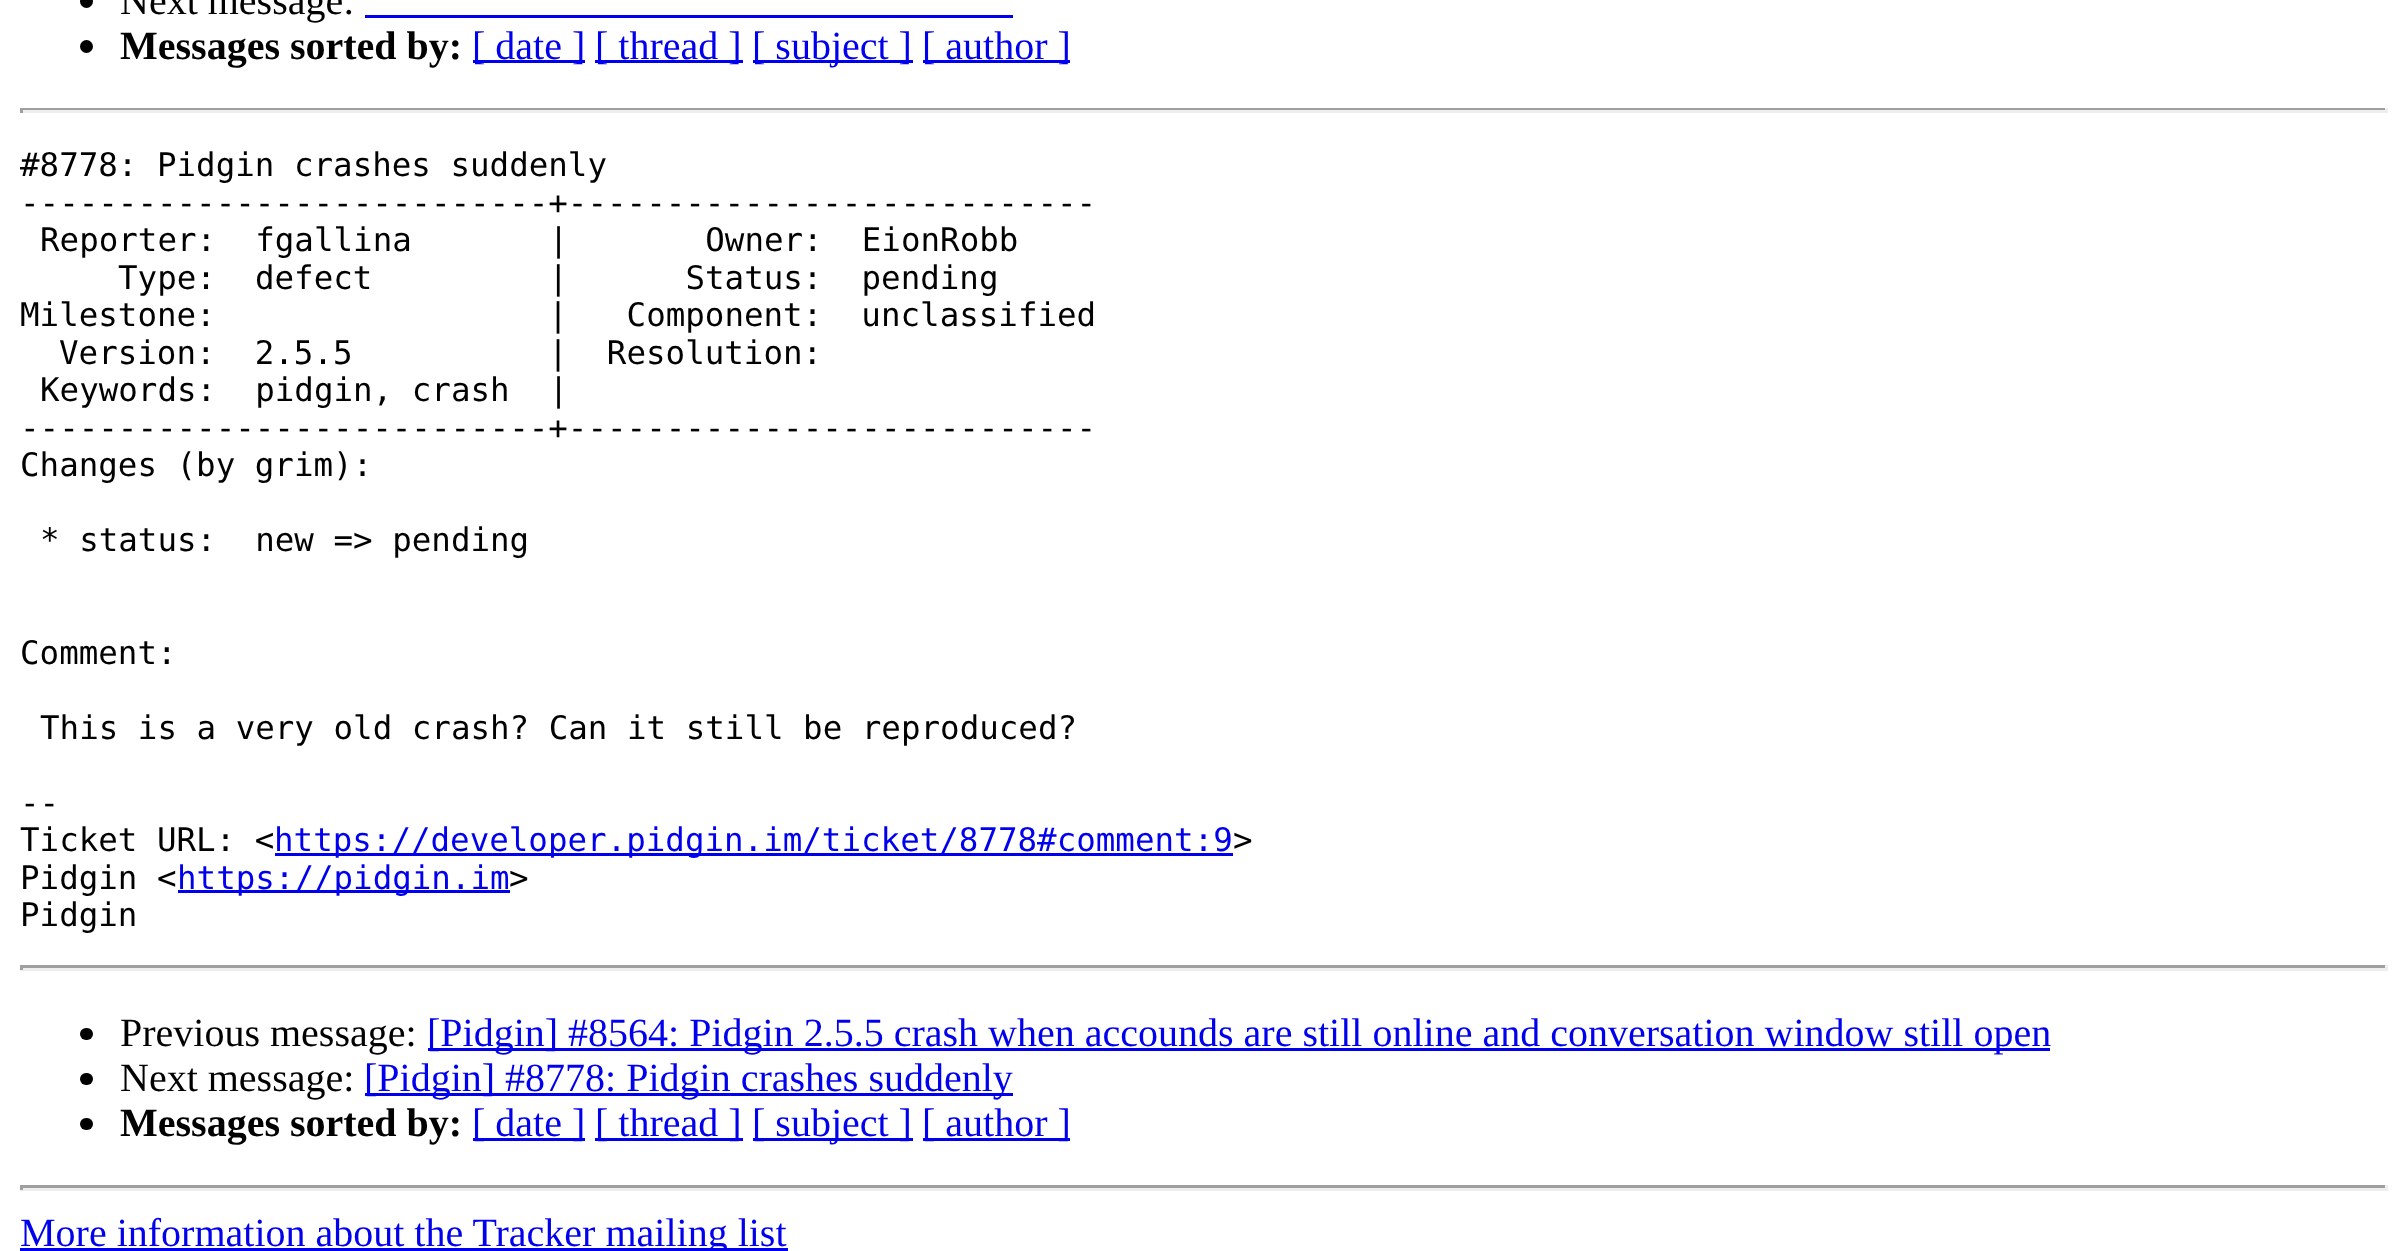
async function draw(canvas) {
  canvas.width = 2406
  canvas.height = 1251
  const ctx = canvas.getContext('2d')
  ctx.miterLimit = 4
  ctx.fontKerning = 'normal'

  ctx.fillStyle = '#fff'
  ctx.fillRect(0, 0, 2406, 1251)
  ctx.fillStyle = '#000'
  ctx.beginPath()
  ctx.arc(86.5, 1.5, 6.5, 0, 2 * Math.PI)
  ctx.fill()
  ctx.font = '40px Liberation Serif'
  ctx.fillText('Next message:', 120, 14)
  ctx.fillStyle = '#00e'
  ctx.fillRect(365, 15, 648, 3)
  ctx.fillStyle = '#000'
  ctx.beginPath()
  ctx.arc(86.5, 46.5, 6.5, 0, 2 * Math.PI)
  ctx.fill()
  ctx.font = 'bold 40px Liberation Serif'
  ctx.fillText('Messages sorted by:', 120, 59)
  ctx.fillStyle = '#00e'
  ctx.fillRect(473, 60, 112, 3)
  ctx.font = '40px Liberation Serif'
  ctx.fillText('[ date ]', 472, 59)
  ctx.fillRect(595, 60, 148, 3)
  ctx.fillText('[ thread ]', 595, 59)
  ctx.fillRect(753, 60, 160, 3)
  ctx.fillText('[ subject ]', 752, 59)
  ctx.fillRect(923, 60, 147, 3)
  ctx.fillText('[ author ]', 922, 59)
  ctx.fillStyle = '#9f9f9f'
  ctx.fillRect(20, 108, 2368, 2)
  ctx.fillStyle = '#eee'
  ctx.fillRect(2385, 108, 3, 5)
  ctx.fillRect(20, 110, 2368, 3)
  ctx.fillStyle = '#9f9f9f'
  ctx.fillRect(20, 108, 3, 5)
  ctx.font = '32.5px DejaVu Sans Mono'
  ctx.fillStyle = '#000'
  ctx.fillText('#8778: Pidgin crashes suddenly', 20, 176)
  ctx.fillText('---------------------------+---------------------------', 20, 214)
  ctx.fillText('Reporter:  fgallina       |       Owner:  EionRobb', 40, 251)
  ctx.fillText('Type:  defect         |      Status:  pending', 118, 289)
  ctx.fillText('Milestone:                 |   Component:  unclassified', 20, 326)
  ctx.fillText('Version:  2.5.5          |  Resolution:', 59, 364)
  ctx.fillText('Keywords:  pidgin, crash  |', 40, 401)
  ctx.fillText('---------------------------+---------------------------', 20, 439)
  ctx.fillText('Changes (by grim):', 20, 476)
  ctx.fillText('* status:  new => pending', 40, 551)
  ctx.fillText('Comment:', 20, 664)
  ctx.fillText('This is a very old crash? Can it still be reproduced?', 40, 739)
  ctx.fillText('--', 20, 814)
  ctx.fillText('Ticket URL: <', 20, 851)
  ctx.fillStyle = '#00e'
  ctx.fillRect(275, 853, 958, 3)
  ctx.fillText('https://developer.pidgin.im/ticket/8778#comment:9', 274, 851)
  ctx.fillStyle = '#000'
  ctx.fillText('>', 1233, 851)
  ctx.fillText('Pidgin <', 20, 889)
  ctx.fillStyle = '#00e'
  ctx.fillRect(178, 890, 332, 3)
  ctx.fillText('https://pidgin.im', 177, 889)
  ctx.fillStyle = '#000'
  ctx.fillText('>', 509, 889)
  ctx.fillText('Pidgin', 20, 926)
  ctx.fillStyle = '#9f9f9f'
  ctx.fillRect(20, 965, 2368, 3)
  ctx.fillStyle = '#eee'
  ctx.fillRect(2385, 965, 3, 5)
  ctx.fillRect(20, 968, 2368, 3)
  ctx.fillStyle = '#9f9f9f'
  ctx.fillRect(20, 965, 3, 5)
  ctx.fillStyle = '#000'
  ctx.beginPath()
  ctx.roundRect(80, 1028, 13, 12, 6)
  ctx.fill()
  ctx.font = '40px Liberation Serif'
  ctx.fillText('Previous message:', 120, 1046)
  ctx.fillStyle = '#00e'
  ctx.fillRect(428, 1048, 1622, 3)
  ctx.fillText('[Pidgin] #8564: Pidgin 2.5.5 crash when accounds are still online and conversation window still open', 427, 1046)
  ctx.fillStyle = '#000'
  ctx.beginPath()
  ctx.roundRect(80, 1073, 13, 12, 6)
  ctx.fill()
  ctx.fillText('Next message:', 120, 1091)
  ctx.fillStyle = '#00e'
  ctx.fillRect(365, 1093, 648, 3)
  ctx.fillText('[Pidgin] #8778: Pidgin crashes suddenly', 364, 1091)
  ctx.fillStyle = '#000'
  ctx.beginPath()
  ctx.roundRect(80, 1118, 13, 12, 6)
  ctx.fill()
  ctx.font = 'bold 40px Liberation Serif'
  ctx.fillText('Messages sorted by:', 120, 1136)
  ctx.fillStyle = '#00e'
  ctx.fillRect(473, 1138, 112, 3)
  ctx.font = '40px Liberation Serif'
  ctx.fillText('[ date ]', 472, 1136)
  ctx.fillRect(595, 1138, 148, 3)
  ctx.fillText('[ thread ]', 595, 1136)
  ctx.fillRect(753, 1138, 160, 3)
  ctx.fillText('[ subject ]', 752, 1136)
  ctx.fillRect(923, 1138, 147, 3)
  ctx.fillText('[ author ]', 922, 1136)
  ctx.fillStyle = '#9f9f9f'
  ctx.fillRect(20, 1185, 2368, 3)
  ctx.fillStyle = '#eee'
  ctx.fillRect(2385, 1185, 3, 5)
  ctx.fillRect(20, 1188, 2368, 3)
  ctx.fillStyle = '#9f9f9f'
  ctx.fillRect(20, 1185, 3, 5)
  ctx.fillStyle = '#00e'
  ctx.fillRect(20, 1248, 768, 3)
  ctx.fillText('More information about the Tracker mailing list', 20, 1246)
}

draw(document.querySelector('canvas'))
